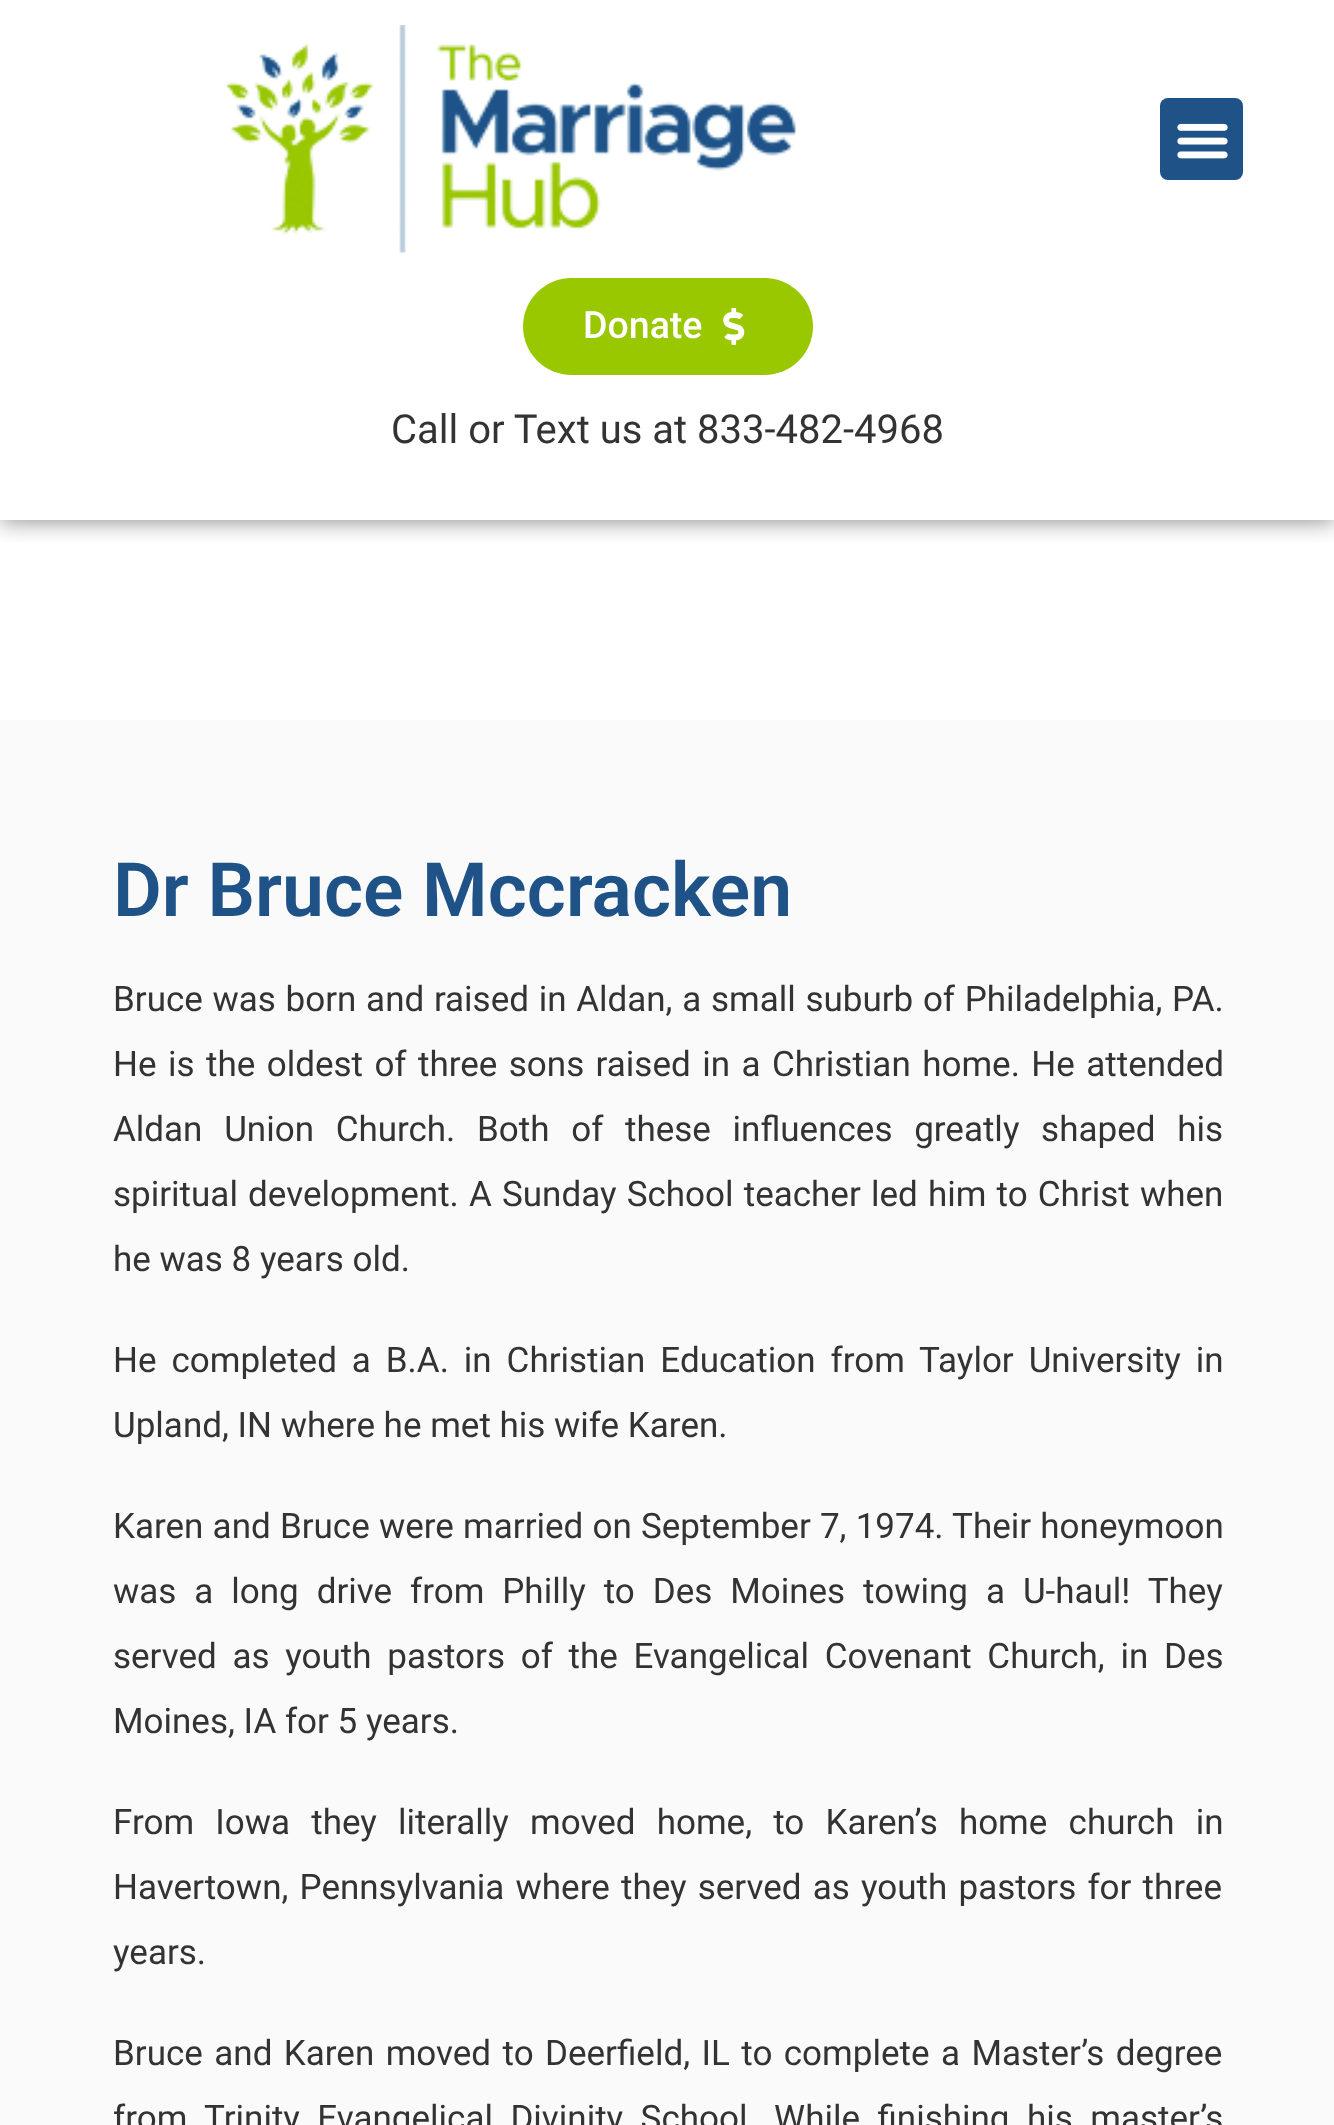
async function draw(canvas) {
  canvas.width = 1334
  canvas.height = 2125
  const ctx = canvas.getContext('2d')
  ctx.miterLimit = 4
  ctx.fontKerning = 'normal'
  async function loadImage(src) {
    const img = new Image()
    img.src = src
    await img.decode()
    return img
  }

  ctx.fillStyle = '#fff'
  ctx.fillRect(0, 0, 1334, 2125)
  ctx.save()
  ctx.beginPath()
  ctx.rect(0, 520, 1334, 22)
  ctx.clip()
  ctx.fillStyle = '#00000080'
  ctx.filter = 'blur(12.5px)'
  ctx.beginPath()
  ctx.rect(0, 0, 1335, 520)
  ctx.fill()
  ctx.filter = 'none'
  ctx.restore()
  ctx.drawImage(await loadImage('image0.png'), 225, 25, 571, 228)
  ctx.fillStyle = '#1f5388'
  ctx.beginPath()
  ctx.roundRect(1160, 98, 83, 82, 8)
  ctx.fill()
  ctx.drawImage(await loadImage('image1.png'), 1177, 123, 51, 36)
  ctx.fillStyle = '#99c700'
  ctx.beginPath()
  ctx.roundRect(523, 278, 290, 97, 48.5)
  ctx.fill()
  ctx.font = '500 37.5px Roboto'
  ctx.fillStyle = '#fff'
  ctx.fillText('Donate', 583, 338)
  ctx.drawImage(await loadImage('image2.png'), 723, 308, 22, 37)
  ctx.font = '40px Roboto'
  ctx.fillStyle = '#333'
  ctx.fillText('Call or Text us at 833-482-4968', 391, 443)
  ctx.fillStyle = '#fafafa'
  ctx.fillRect(0, 720, 1334, 1405)
  ctx.font = '600 75px Roboto'
  ctx.fillStyle = '#1f5388'
  ctx.fillText('Dr Bruce Mccracken', 113, 916)
  ctx.wordSpacing = '1px'
  ctx.font = '35px Roboto'
  ctx.fillStyle = '#333'
  ctx.fillText('Bruce was born and raised in Aldan, a small suburb of Philadelphia, PA.', 113, 1011)
  ctx.wordSpacing = '2.75px'
  ctx.fillText('He is the oldest of three sons raised in a Christian home. He attended', 113, 1076)
  ctx.wordSpacing = '13px'
  ctx.fillText('Aldan Union Church. Both of these influences greatly shaped his', 113, 1141)
  ctx.wordSpacing = '1.5px'
  ctx.fillText('spiritual development. A Sunday School teacher led him to Christ when', 113, 1206)
  ctx.wordSpacing = '0px'
  ctx.fillText('he was 8 years old.', 113, 1271)
  ctx.wordSpacing = '6.25px'
  ctx.fillText('He completed a B.A. in Christian Education from Taylor University in', 113, 1372)
  ctx.wordSpacing = '0px'
  ctx.fillText('Upland, IN where he met his wife Karen.', 113, 1437)
  ctx.wordSpacing = '0.5px'
  ctx.fillText('Karen and Bruce were married on September 7, 1974. Their honeymoon', 113, 1538)
  ctx.wordSpacing = '9.25px'
  ctx.fillText('was a long drive from Philly to Des Moines towing a U-haul! They', 113, 1603)
  ctx.wordSpacing = '7px'
  ctx.fillText('served as youth pastors of the Evangelical Covenant Church, in Des', 113, 1668)
  ctx.wordSpacing = '0px'
  ctx.fillText('Moines, IA for 5 years.', 113, 1733)
  ctx.wordSpacing = '12.5px'
  ctx.fillText('From Iowa they literally moved home, to Karen’s home church in', 113, 1834)
  ctx.wordSpacing = '2.5px'
  ctx.fillText('Havertown, Pennsylvania where they served as youth pastors for three', 113, 1899)
  ctx.wordSpacing = '0px'
  ctx.fillText('years.', 113, 1964)
  ctx.wordSpacing = '2.75px'
  ctx.fillText('Bruce and Karen moved to Deerfield, IL to complete a Master’s degree', 113, 2065)
  ctx.wordSpacing = '8.75px'
  ctx.fillText('from Trinity Evangelical Divinity School. While finishing his master’s', 113, 2130)
}

draw(document.querySelector('canvas'))
